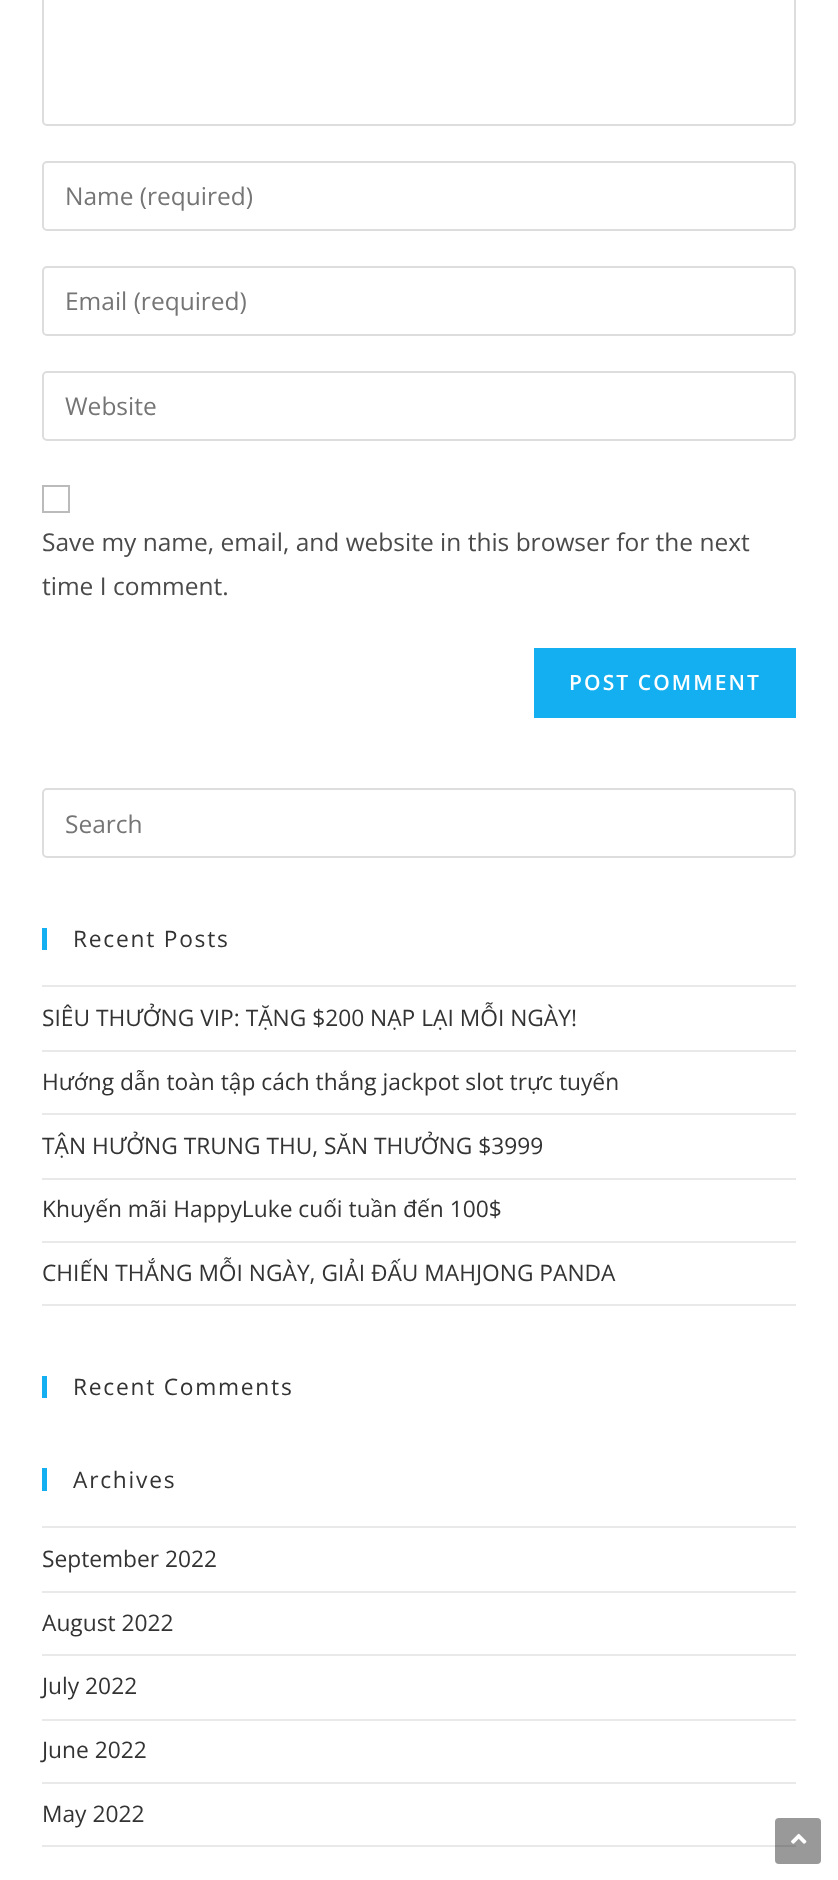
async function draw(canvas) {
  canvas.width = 838
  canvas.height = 1880
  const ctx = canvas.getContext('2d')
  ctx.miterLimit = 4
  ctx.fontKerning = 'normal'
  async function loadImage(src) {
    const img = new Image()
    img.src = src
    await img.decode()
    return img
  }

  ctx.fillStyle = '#fff'
  ctx.fillRect(0, 0, 838, 1880)
  ctx.beginPath()
  ctx.roundRect(43, -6, 752, 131, 4)
  ctx.strokeStyle = '#ddd'
  ctx.lineWidth = 2
  ctx.stroke()
  ctx.beginPath()
  ctx.roundRect(43, 162, 752, 68, 4)
  ctx.stroke()
  ctx.font = '24.5px Open Sans'
  ctx.fillStyle = '#757575'
  ctx.fillText('Name (required)', 65, 205)
  ctx.beginPath()
  ctx.roundRect(43, 267, 752, 68, 4)
  ctx.stroke()
  ctx.fillText('Email (required)', 65, 310)
  ctx.beginPath()
  ctx.roundRect(43, 372, 752, 68, 4)
  ctx.stroke()
  ctx.fillText('Website', 65, 415)
  ctx.strokeStyle = '#bbb'
  ctx.strokeRect(43, 486, 26, 26)
  ctx.fillStyle = '#4a4a4a'
  ctx.fillText('Save my name, email, and website in this browser for the next', 42, 551)
  ctx.fillText('time I comment.', 42, 595)
  ctx.fillStyle = '#13aff0'
  ctx.fillRect(534, 648, 262, 70)
  ctx.letterSpacing = '2.1px'
  ctx.font = '600 21px Open Sans'
  ctx.fillStyle = '#fff'
  ctx.fillText('POST COMMENT', 569, 690)
  ctx.beginPath()
  ctx.roundRect(43, 789, 752, 68, 4)
  ctx.strokeStyle = '#ddd'
  ctx.stroke()
  ctx.letterSpacing = '0px'
  ctx.font = '24.5px Open Sans'
  ctx.fillStyle = '#757575'
  ctx.fillText('Search', 65, 833)
  ctx.fillStyle = '#13aff0'
  ctx.fillRect(42, 928, 5, 22)
  ctx.letterSpacing = '1.75px'
  ctx.font = '22.75px Open Sans'
  ctx.fillStyle = '#333'
  ctx.fillText('Recent Posts', 73, 947)
  ctx.fillStyle = '#e9e9e9'
  ctx.fillRect(42, 985, 754, 2)
  ctx.fillRect(42, 1050, 754, 2)
  ctx.letterSpacing = '0px'
  ctx.fillStyle = '#333'
  ctx.fillText('SIÊU THƯỞNG VIP: TẶNG $200 NẠP LẠI MỖI NGÀY!', 42, 1026)
  ctx.fillStyle = '#e9e9e9'
  ctx.fillRect(42, 1113, 754, 2)
  ctx.fillStyle = '#333'
  ctx.fillText('Hướng dẫn toàn tập cách thắng jackpot slot trực tuyến', 42, 1090)
  ctx.fillStyle = '#e9e9e9'
  ctx.fillRect(42, 1178, 754, 2)
  ctx.fillStyle = '#333'
  ctx.fillText('TẬN HƯỞNG TRUNG THU, SĂN THƯỞNG $3999', 42, 1154)
  ctx.fillStyle = '#e9e9e9'
  ctx.fillRect(42, 1241, 754, 2)
  ctx.fillStyle = '#333'
  ctx.fillText('Khuyến mãi HappyLuke cuối tuần đến 100$', 42, 1217)
  ctx.fillStyle = '#e9e9e9'
  ctx.fillRect(42, 1304, 754, 2)
  ctx.fillStyle = '#333'
  ctx.fillText('CHIẾN THẮNG MỖI NGÀY, GIẢI ĐẤU MAHJONG PANDA', 42, 1281)
  ctx.fillStyle = '#13aff0'
  ctx.fillRect(42, 1376, 5, 22)
  ctx.letterSpacing = '1.75px'
  ctx.fillStyle = '#333'
  ctx.fillText('Recent Comments', 73, 1395)
  ctx.fillStyle = '#13aff0'
  ctx.fillRect(42, 1468, 5, 23)
  ctx.fillStyle = '#333'
  ctx.fillText('Archives', 73, 1488)
  ctx.fillStyle = '#e9e9e9'
  ctx.fillRect(42, 1526, 754, 2)
  ctx.fillRect(42, 1591, 754, 2)
  ctx.letterSpacing = '0px'
  ctx.fillStyle = '#333'
  ctx.fillText('September 2022', 42, 1567)
  ctx.fillStyle = '#e9e9e9'
  ctx.fillRect(42, 1654, 754, 2)
  ctx.fillStyle = '#333'
  ctx.fillText('August 2022', 42, 1631)
  ctx.fillStyle = '#e9e9e9'
  ctx.fillRect(42, 1719, 754, 2)
  ctx.fillStyle = '#333'
  ctx.fillText('July 2022', 42, 1694)
  ctx.fillStyle = '#e9e9e9'
  ctx.fillRect(42, 1782, 754, 2)
  ctx.fillStyle = '#333'
  ctx.fillText('June 2022', 42, 1758)
  ctx.fillStyle = '#e9e9e9'
  ctx.fillRect(42, 1845, 754, 2)
  ctx.fillStyle = '#333'
  ctx.fillText('May 2022', 42, 1822)
  ctx.fillStyle = '#00000066'
  ctx.beginPath()
  ctx.roundRect(775, 1818, 46, 46, 4)
  ctx.fill()
  ctx.drawImage(await loadImage('image0.png'), 791, 1833, 16, 11)
}

draw(document.querySelector('canvas'))
